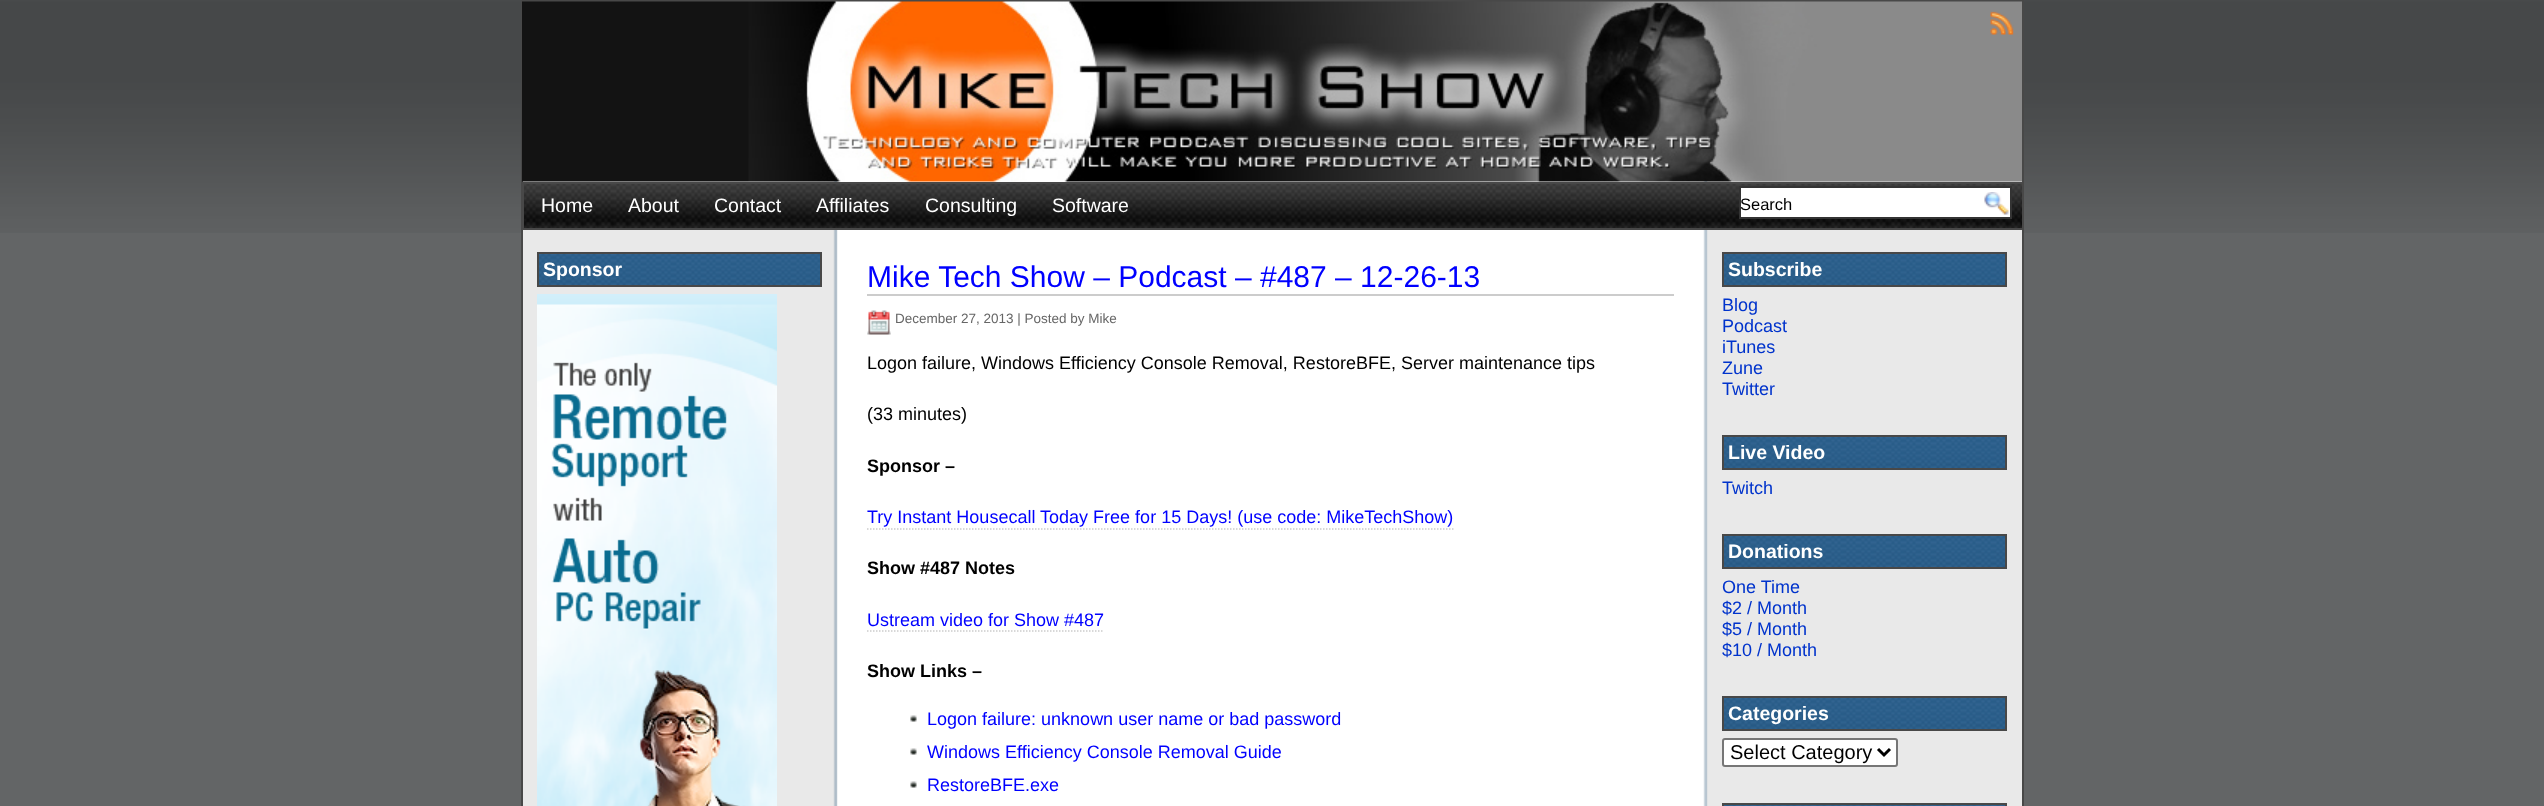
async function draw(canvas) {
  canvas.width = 2544
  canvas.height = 806
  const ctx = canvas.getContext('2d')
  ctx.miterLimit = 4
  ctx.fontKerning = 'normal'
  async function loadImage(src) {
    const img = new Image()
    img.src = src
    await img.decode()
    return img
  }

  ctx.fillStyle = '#636566'
  ctx.fillRect(0, 0, 2544, 806)
  ctx.drawImage(await loadImage('image0.png'), 0, 0, 2544, 233)
  ctx.drawImage(await loadImage('image1.png'), 523, 181, 1499, 625)
  ctx.strokeStyle = '#484848'
  ctx.lineWidth = 2
  ctx.strokeRect(522, 1, 1501, 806)
  ctx.drawImage(await loadImage('image2.png'), 522, 1, 1500, 181)
  ctx.drawImage(await loadImage('image3.png'), 1990, 11, 24, 24)
  ctx.drawImage(await loadImage('image4.png'), 524, 184, 1498, 44)
  ctx.strokeRect(523, 183, 1500, 46)
  ctx.font = '19.5px Liberation Sans'
  ctx.fillStyle = '#fff'
  ctx.fillText('Home', 541, 212)
  ctx.fillText('About', 628, 212)
  ctx.fillText('Contact', 714, 212)
  ctx.fillText('Affiliates', 816, 212)
  ctx.fillText('Consulting', 925, 212)
  ctx.fillText('Software', 1052, 212)
  ctx.beginPath()
  ctx.rect(1740, 187, 271, 31)
  ctx.fill()
  ctx.strokeStyle = '#333'
  ctx.stroke()
  ctx.font = '16.5px Liberation Sans'
  ctx.fillStyle = '#000'
  ctx.fillText('Search', 1740, 210)
  ctx.drawImage(await loadImage('image5.png'), 1984, 192, 25, 23)
  ctx.drawImage(await loadImage('image6.png'), 539, 254, 281, 31)
  ctx.strokeStyle = '#484848'
  ctx.strokeRect(538, 253, 283, 33)
  ctx.font = 'bold 19.5px Liberation Sans'
  ctx.fillStyle = '#fff'
  ctx.fillText('Sponsor', 543, 276)
  ctx.drawImage(await loadImage('image7.png'), 537, 294, 240, 512)
  ctx.fillStyle = '#ccc'
  ctx.fillRect(867, 294, 807, 2)
  ctx.font = '30px Liberation Sans'
  ctx.fillStyle = '#00f'
  ctx.fillText('Mike Tech Show – Podcast – #487 – 12-26-13', 867, 287)
  ctx.drawImage(await loadImage('image8.png'), 867, 310, 24, 25)
  ctx.font = '13.5px Liberation Sans'
  ctx.fillStyle = '#666'
  ctx.fillText('December 27, 2013 | Posted by Mike', 895, 323)
  ctx.font = '18px Liberation Sans'
  ctx.fillStyle = '#000'
  ctx.fillText('Logon failure, Windows Efficiency Console Removal, RestoreBFE, Server maintenance tips', 867, 369)
  ctx.fillText('(33 minutes)', 867, 420)
  ctx.font = 'bold 18px Liberation Sans'
  ctx.fillText('Sponsor –', 867, 472)
  ctx.font = '18px Liberation Sans'
  ctx.fillStyle = '#00f'
  ctx.fillText('Try Instant Housecall Today Free for 15 Days! (use code: MikeTechShow)', 867, 523)
  ctx.beginPath()
  ctx.moveTo(867, 529)
  ctx.lineTo(1453.5, 529)
  ctx.strokeStyle = '#ccc'
  ctx.lineWidth = 1.5
  ctx.setLineDash([1.5, 1.5])
  ctx.stroke()
  ctx.font = 'bold 18px Liberation Sans'
  ctx.fillStyle = '#000'
  ctx.fillText('Show #487 Notes', 867, 574)
  ctx.font = '18px Liberation Sans'
  ctx.fillStyle = '#00f'
  ctx.fillText('Ustream video for Show #487', 867, 626)
  ctx.beginPath()
  ctx.moveTo(867, 631)
  ctx.lineTo(1104, 631)
  ctx.stroke()
  ctx.font = 'bold 18px Liberation Sans'
  ctx.fillStyle = '#000'
  ctx.fillText('Show Links –', 867, 677)
  ctx.drawImage(await loadImage('image9.png'), 910, 715, 7, 7)
  ctx.font = '18px Liberation Sans'
  ctx.fillStyle = '#00f'
  ctx.fillText('Logon failure: unknown user name or bad password', 927, 725)
  ctx.drawImage(await loadImage('image9.png'), 910, 748, 7, 7)
  ctx.fillText('Windows Efficiency Console Removal Guide', 927, 758)
  ctx.drawImage(await loadImage('image9.png'), 910, 781, 7, 7)
  ctx.fillText('RestoreBFE.exe', 927, 791)
  ctx.drawImage(await loadImage('image10.png'), 1724, 254, 281, 31)
  ctx.strokeStyle = '#484848'
  ctx.lineWidth = 2
  ctx.setLineDash([])
  ctx.strokeRect(1723, 253, 283, 33)
  ctx.font = 'bold 19.5px Liberation Sans'
  ctx.fillStyle = '#fff'
  ctx.fillText('Subscribe', 1728, 276)
  ctx.font = '18px Liberation Sans'
  ctx.fillStyle = '#03c'
  ctx.fillText('Blog', 1722, 311)
  ctx.fillText('Podcast', 1722, 332)
  ctx.fillText('iTunes', 1722, 353)
  ctx.fillText('Zune', 1722, 374)
  ctx.fillText('Twitter', 1722, 395)
  ctx.drawImage(await loadImage('image11.png'), 1724, 437, 281, 31)
  ctx.strokeRect(1723, 436, 283, 33)
  ctx.font = 'bold 19.5px Liberation Sans'
  ctx.fillStyle = '#fff'
  ctx.fillText('Live Video', 1728, 459)
  ctx.font = '18px Liberation Sans'
  ctx.fillStyle = '#03c'
  ctx.fillText('Twitch', 1722, 494)
  ctx.drawImage(await loadImage('image10.png'), 1724, 536, 281, 31)
  ctx.strokeRect(1723, 535, 283, 33)
  ctx.font = 'bold 19.5px Liberation Sans'
  ctx.fillStyle = '#fff'
  ctx.fillText('Donations', 1728, 558)
  ctx.font = '18px Liberation Sans'
  ctx.fillStyle = '#03c'
  ctx.fillText('One Time', 1722, 593)
  ctx.fillText('$2 / Month', 1722, 614)
  ctx.fillText('$5 / Month', 1722, 635)
  ctx.fillText('$10 / Month', 1722, 656)
  ctx.drawImage(await loadImage('image12.png'), 1724, 698, 281, 31)
  ctx.strokeRect(1723, 697, 283, 33)
  ctx.font = 'bold 19.5px Liberation Sans'
  ctx.fillStyle = '#fff'
  ctx.fillText('Categories', 1728, 720)
  ctx.beginPath()
  ctx.roundRect(1723, 739, 174, 27, 2)
  ctx.fill()
  ctx.strokeStyle = '#767676'
  ctx.stroke()
  ctx.beginPath()
  ctx.moveTo(1878, 749)
  ctx.lineTo(1884, 755)
  ctx.lineTo(1890, 749)
  ctx.strokeStyle = '#000'
  ctx.lineWidth = 3
  ctx.stroke()
  ctx.font = '20px Liberation Sans'
  ctx.fillStyle = '#000'
  ctx.fillText('Select Category', 1730, 759)
  ctx.drawImage(await loadImage('image13.png'), 1724, 805, 281, 1)
  ctx.strokeStyle = '#484848'
  ctx.lineWidth = 2
  ctx.strokeRect(1723, 804, 283, 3)
}

draw(document.querySelector('canvas'))
